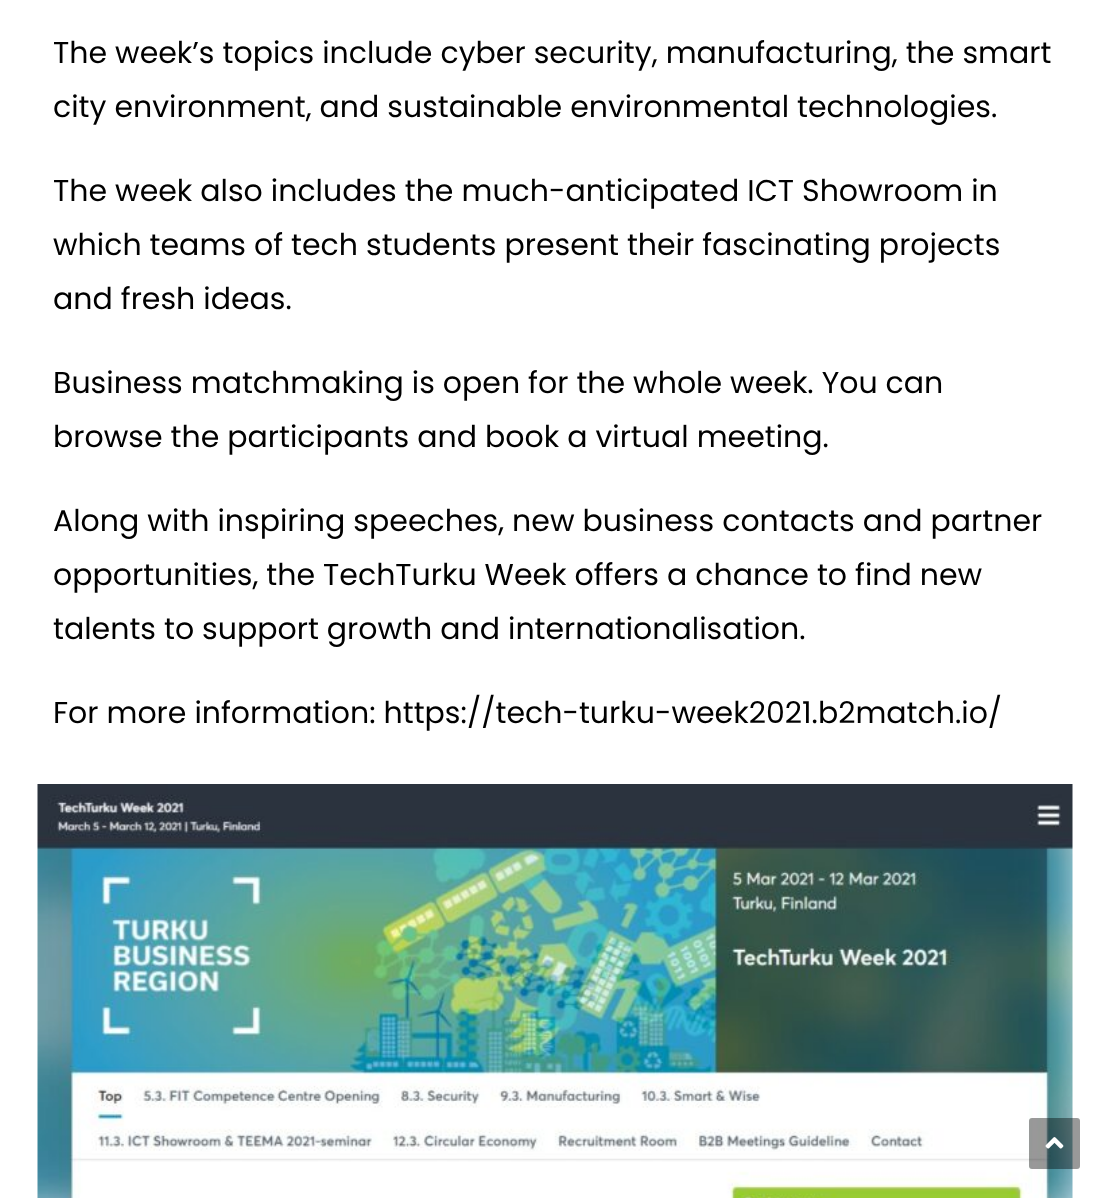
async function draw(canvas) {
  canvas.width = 1109
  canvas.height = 1198
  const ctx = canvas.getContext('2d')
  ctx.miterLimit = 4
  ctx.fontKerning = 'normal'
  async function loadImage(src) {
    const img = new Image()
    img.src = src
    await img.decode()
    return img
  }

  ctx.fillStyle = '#fff'
  ctx.fillRect(0, 0, 1109, 1198)
  ctx.font = '30px Poppins'
  ctx.fillStyle = '#000'
  ctx.fillText('The week’s topics include cyber security, manufacturing, the smart', 53, 63)
  ctx.fillText('city environment, and sustainable environmental technologies.', 53, 117)
  ctx.fillText('The week also includes the much-anticipated ICT Showroom in', 53, 201)
  ctx.fillText('which teams of tech students present their fascinating projects', 53, 255)
  ctx.fillText('and fresh ideas.', 53, 309)
  ctx.fillText('Business matchmaking is open for the whole week. You can', 53, 393)
  ctx.fillText('browse the participants and book a virtual meeting.', 53, 447)
  ctx.fillText('Along with inspiring speeches, new business contacts and partner', 53, 531)
  ctx.fillText('opportunities, the TechTurku Week offers a chance to find new', 53, 585)
  ctx.fillText('talents to support growth and internationalisation.', 53, 639)
  ctx.fillText('For more information: https://tech-turku-week2021.b2match.io/', 53, 723)
  ctx.drawImage(await loadImage('image0.png'), 37, 784, 1036, 414)
  ctx.fillStyle = '#00000066'
  ctx.beginPath()
  ctx.roundRect(1029, 1118, 51, 51, 3)
  ctx.fill()
  ctx.drawImage(await loadImage('image1.png'), 1045, 1137, 19, 12)
}

draw(document.querySelector('canvas'))
